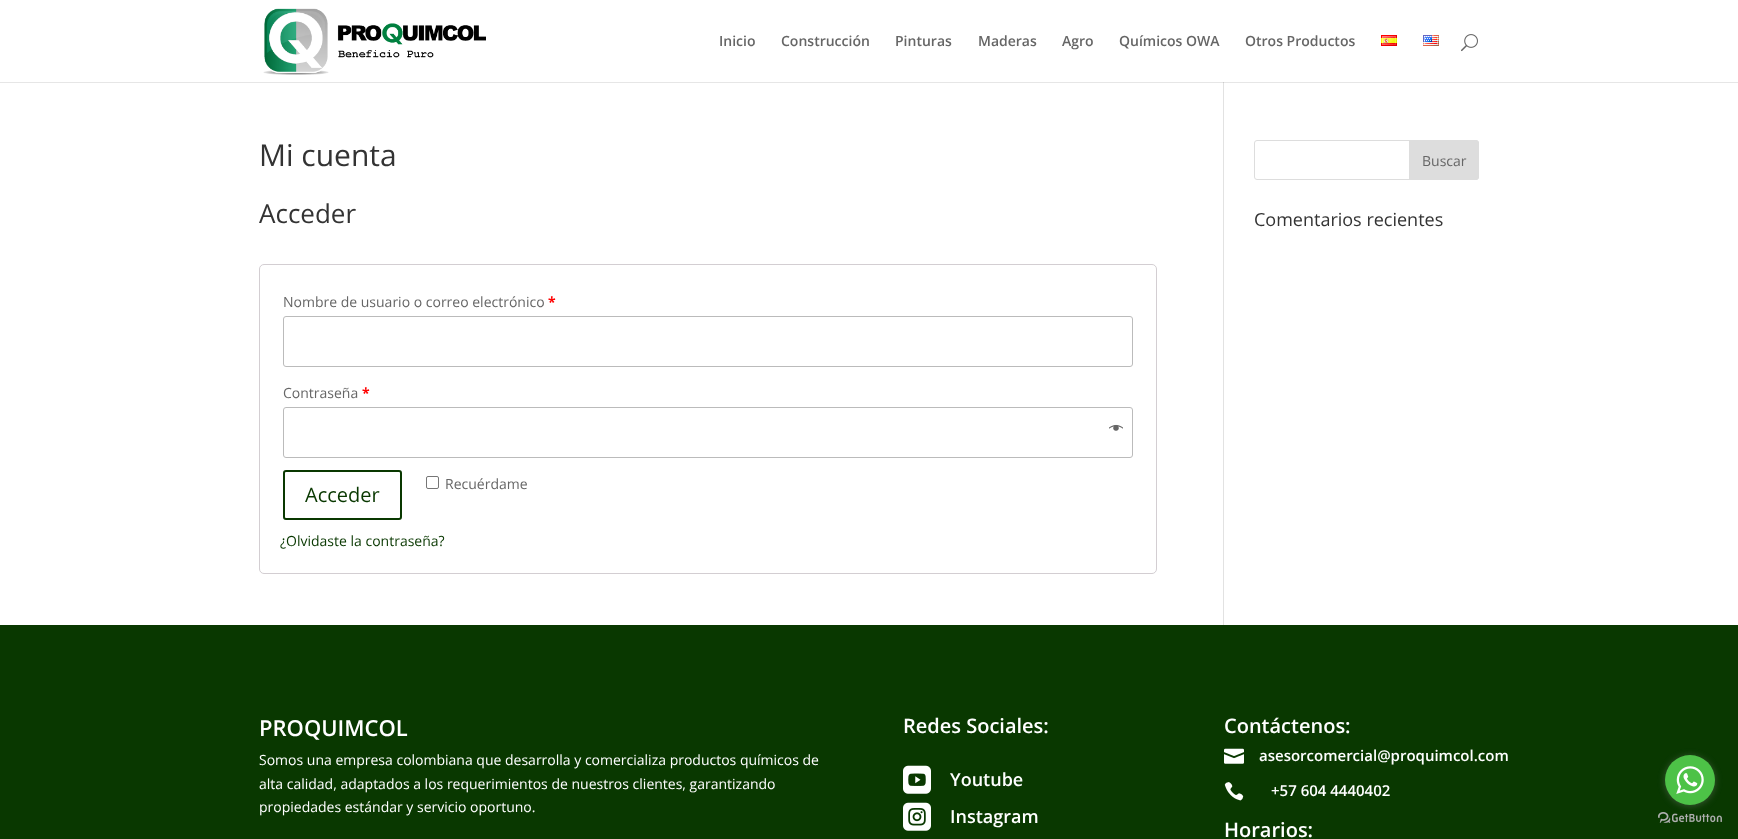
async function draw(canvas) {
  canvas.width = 1738
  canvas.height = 839
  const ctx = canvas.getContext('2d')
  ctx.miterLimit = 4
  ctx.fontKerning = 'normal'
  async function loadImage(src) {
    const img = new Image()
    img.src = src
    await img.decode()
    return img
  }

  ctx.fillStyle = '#fff'
  ctx.fillRect(0, 0, 1738, 839)
  ctx.fillStyle = '#e6e6e6'
  ctx.fillRect(0, 82, 1738, 1)
  ctx.drawImage(await loadImage('image0.png'), 263, 8, 223, 67)
  ctx.font = '600 14px Open Sans'
  ctx.fillStyle = '#666'
  ctx.fillText('Inicio', 719, 46)
  ctx.fillText('Construcción', 781, 46)
  ctx.fillText('Pinturas', 895, 46)
  ctx.fillText('Maderas', 978, 46)
  ctx.fillText('Agro', 1062, 46)
  ctx.fillText('Químicos OWA', 1119, 46)
  ctx.fillText('Otros Productos', 1245, 46)
  ctx.drawImage(await loadImage('image1.png'), 1381, 35, 16, 11)
  ctx.drawImage(await loadImage('image2.png'), 1423, 35, 16, 11)
  ctx.drawImage(await loadImage('image3.png'), 1461, 34, 17, 18)
  ctx.fillStyle = '#e2e2e2'
  ctx.fillRect(1223, 82, 1, 543)
  ctx.fillStyle = '#cbcbcb'
  ctx.fillRect(1223, 82, 1, 1)
  ctx.font = '30px Open Sans'
  ctx.fillStyle = '#333'
  ctx.fillText('Mi cuenta', 259, 166)
  ctx.font = '26px Open Sans'
  ctx.fillText('Acceder', 259, 223)
  ctx.beginPath()
  ctx.roundRect(259.5, 264.5, 897, 309, 4.5)
  ctx.strokeStyle = '#d3ced2'
  ctx.stroke()
  ctx.font = '14px Open Sans'
  ctx.fillStyle = '#666'
  ctx.fillText('Nombre de usuario o correo electrónico', 283, 307)
  ctx.font = 'bold 14px Open Sans'
  ctx.fillStyle = '#f00'
  ctx.fillText('*', 548, 307)
  ctx.beginPath()
  ctx.roundRect(283.5, 316.5, 849, 50, 2.5)
  ctx.strokeStyle = '#bbb'
  ctx.stroke()
  ctx.font = '14px Open Sans'
  ctx.fillStyle = '#666'
  ctx.fillText('Contraseña', 283, 398)
  ctx.font = 'bold 14px Open Sans'
  ctx.fillStyle = '#f00'
  ctx.fillText('*', 362, 398)
  ctx.beginPath()
  ctx.roundRect(283.5, 407.5, 849, 50, 2.5)
  ctx.stroke()
  ctx.drawImage(await loadImage('image4.png'), 1109, 424, 14, 7)
  ctx.beginPath()
  ctx.roundRect(426.5, 476.5, 12, 12, 1.5)
  ctx.strokeStyle = '#767676'
  ctx.stroke()
  ctx.font = '14px Open Sans'
  ctx.fillStyle = '#666'
  ctx.fillText('Recuérdame', 445, 489)
  ctx.beginPath()
  ctx.roundRect(284, 471, 117, 48, 2)
  ctx.strokeStyle = '#093800'
  ctx.lineWidth = 2
  ctx.stroke()
  ctx.font = '20px Open Sans'
  ctx.fillStyle = '#093800'
  ctx.fillText('Acceder', 305, 502)
  ctx.font = '14px Open Sans'
  ctx.fillText('¿Olvidaste la contraseña?', 280, 546)
  ctx.beginPath()
  ctx.roundRect(1254.5, 140.5, 224, 39, 2.5)
  ctx.strokeStyle = '#ddd'
  ctx.lineWidth = 1
  ctx.stroke()
  ctx.fillStyle = '#ddd'
  ctx.beginPath()
  ctx.roundRect(1409.5, 140.5, 69, 39, [0, 2.5, 2.5, 0])
  ctx.fill()
  ctx.stroke()
  ctx.fillStyle = '#666'
  ctx.fillText('Buscar', 1422, 166)
  ctx.font = '18px Open Sans'
  ctx.fillStyle = '#333'
  ctx.fillText('Comentarios recientes', 1254, 226)
  ctx.fillStyle = '#093800'
  ctx.fillRect(0, 625, 1738, 214)
  ctx.font = '600 22px Open Sans'
  ctx.fillStyle = '#fff'
  ctx.fillText('PROQUIMCOL', 259, 736)
  ctx.font = '14px Open Sans'
  ctx.fillText('Somos una empresa colombiana que desarrolla y comercializa productos químicos de', 259, 765)
  ctx.fillText('alta calidad, adaptados a los requerimientos de nuestros clientes, garantizando', 259, 789)
  ctx.fillText('propiedades estándar y servicio oportuno.', 259, 812)
  ctx.font = '600 20px Open Sans'
  ctx.fillText('Redes Sociales:', 903, 733)
  ctx.drawImage(await loadImage('image5.png'), 903, 765, 28, 29)
  ctx.font = '600 18px Open Sans'
  ctx.fillText('Youtube', 950, 786)
  ctx.drawImage(await loadImage('image6.png'), 903, 802, 28, 29)
  ctx.fillText('Instagram', 950, 823)
  ctx.font = '600 20px Open Sans'
  ctx.fillText('Contáctenos:', 1224, 733)
  ctx.drawImage(await loadImage('image7.png'), 1224, 748, 20, 16)
  ctx.font = '600 15px Open Sans'
  ctx.fillText('asesorcomercial@proquimcol.com', 1259, 761)
  ctx.drawImage(await loadImage('image8.png'), 1224, 782, 20, 19)
  ctx.fillText('+57 604 4440402', 1271, 796)
  ctx.font = '600 20px Open Sans'
  ctx.fillText('Horarios:', 1224, 837)
  ctx.drawImage(await loadImage('image10.png'), 1658, 812, 64, 11)
  ctx.fillStyle = '#88888866'
  ctx.filter = 'blur(3.5px)'
  ctx.beginPath()
  ctx.roundRect(1665, 756, 50, 50, 25)
  ctx.fill()
  ctx.filter = 'none'
  ctx.fillStyle = '#4dc247'
  ctx.beginPath()
  ctx.arc(1690, 780, 25, 0, 2 * Math.PI)
  ctx.fill()
  ctx.drawImage(await loadImage('image9.png'), 1676, 766, 28, 28)
}

draw(document.querySelector('canvas'))
